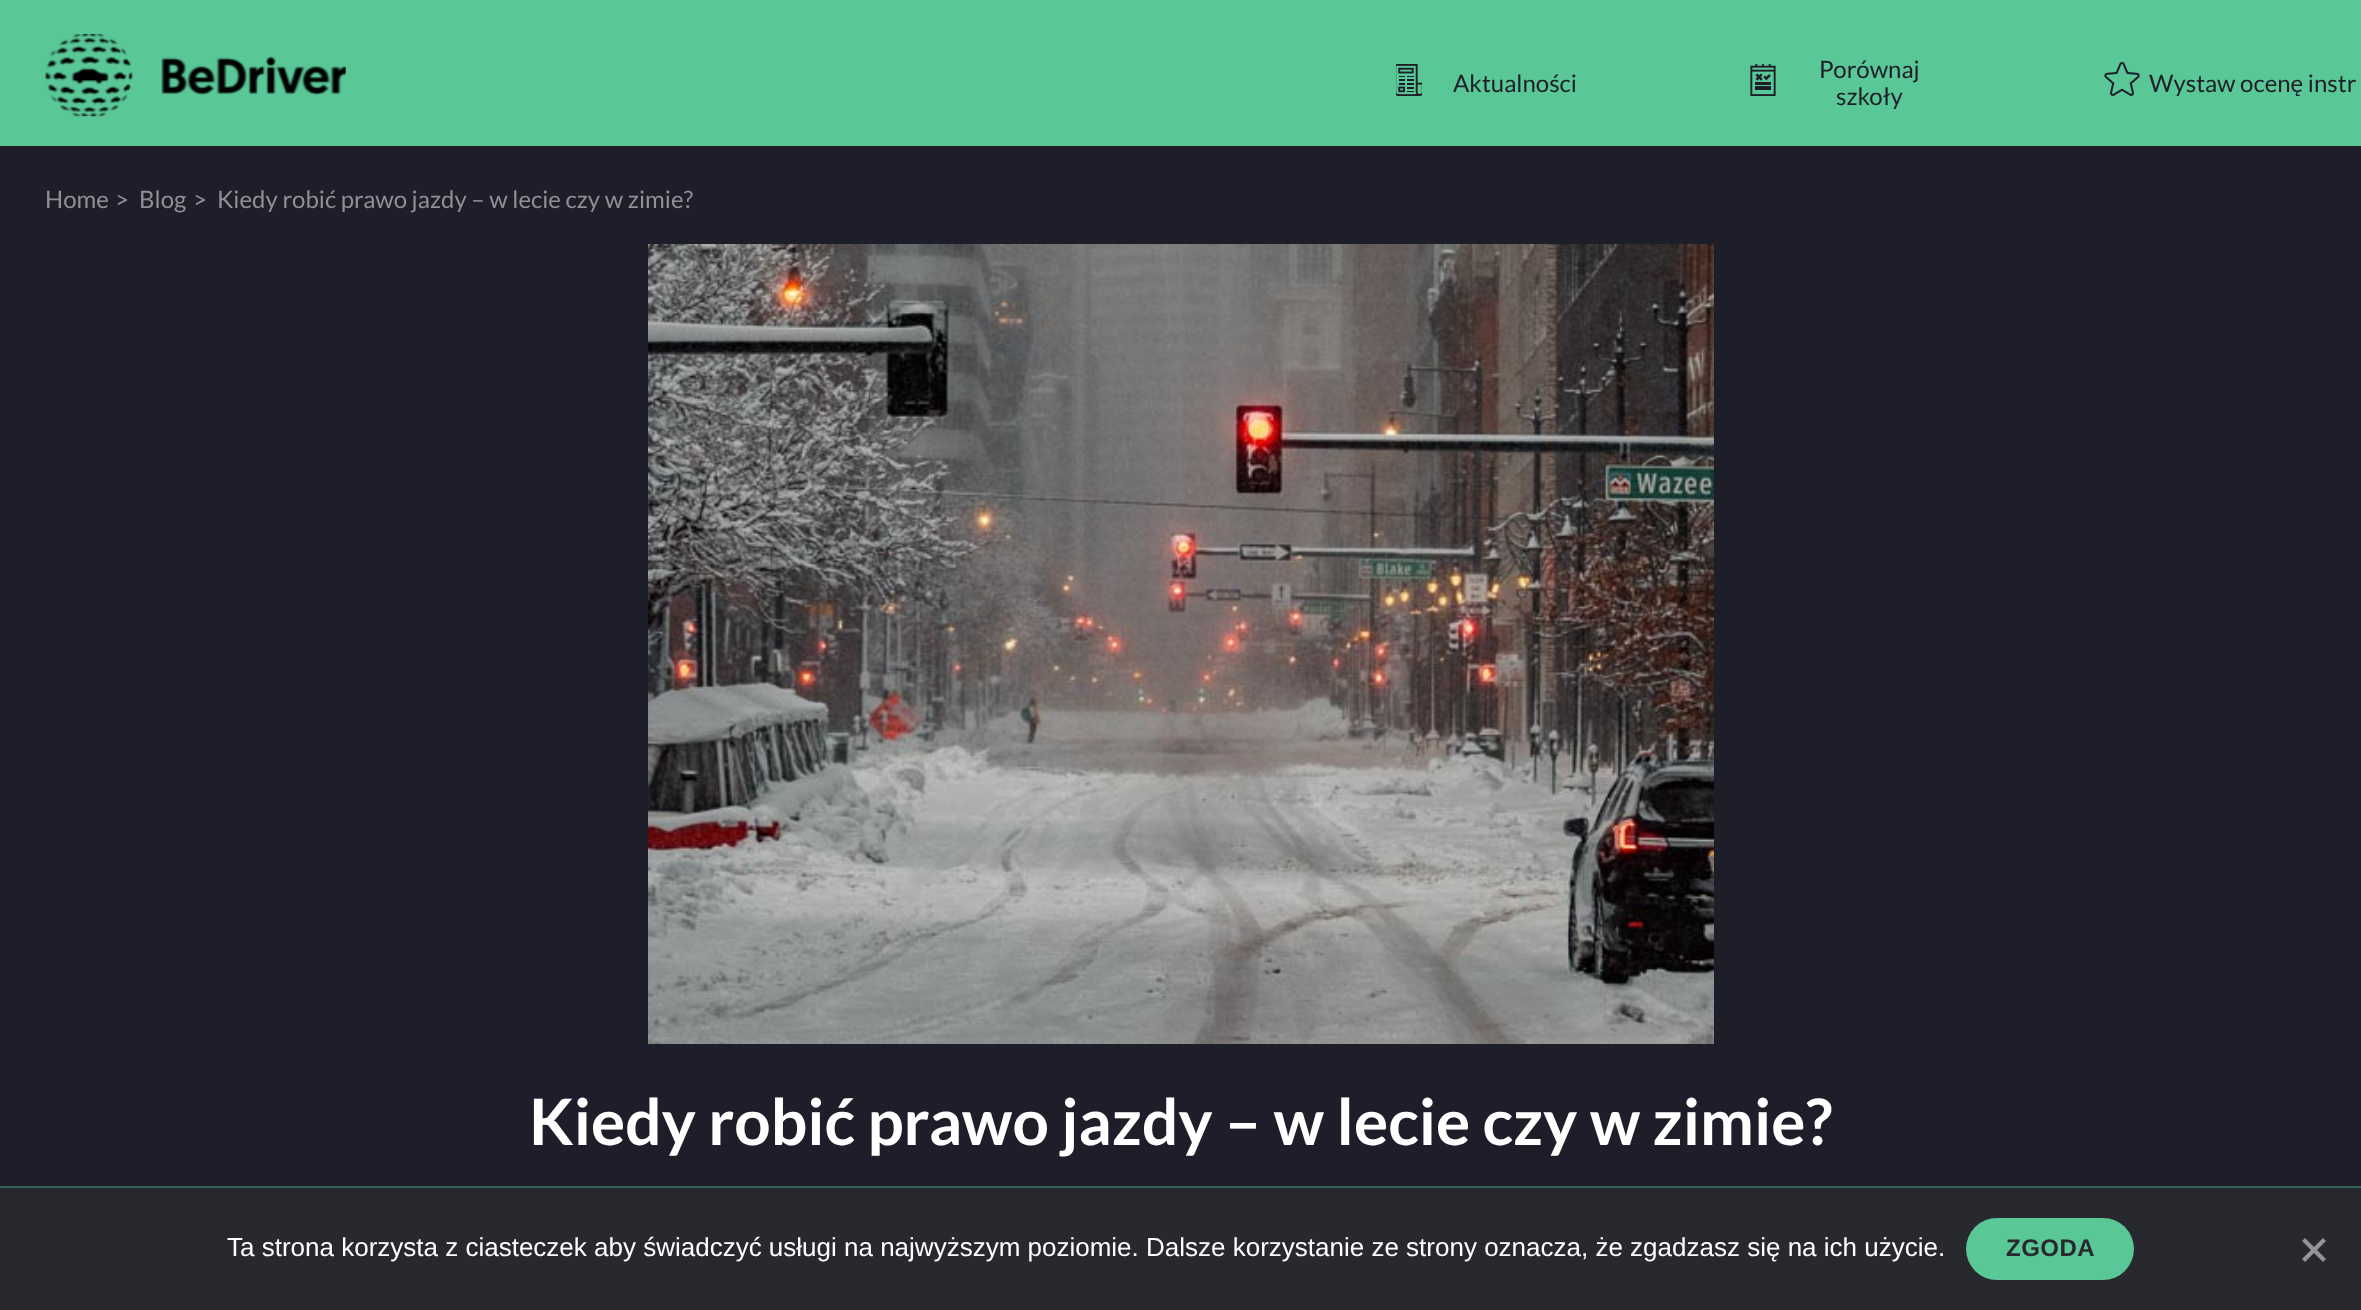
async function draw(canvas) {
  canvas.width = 2361
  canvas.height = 1310
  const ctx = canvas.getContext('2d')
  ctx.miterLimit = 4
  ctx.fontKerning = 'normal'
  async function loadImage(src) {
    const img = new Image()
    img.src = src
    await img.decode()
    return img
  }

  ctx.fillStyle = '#1e1e2a'
  ctx.fillRect(0, 0, 2361, 1310)
  ctx.fillStyle = '#5ac797'
  ctx.fillRect(0, 0, 2361, 146)
  ctx.drawImage(await loadImage('image0.png'), 45, 34, 301, 83)
  ctx.drawImage(await loadImage('image1.png'), 1396, 64, 26, 32)
  ctx.font = '24px Lato'
  ctx.fillStyle = '#1e1e2a'
  ctx.fillText('Aktualności', 1453, 92)
  ctx.drawImage(await loadImage('image2.png'), 1750, 64, 26, 32)
  ctx.fillText('Porównaj', 1819, 78)
  ctx.fillText('szkoły', 1836, 105)
  ctx.drawImage(await loadImage('image3.png'), 2104, 62, 36, 34)
  ctx.fillText('Wystaw ocenę instr', 2149, 92)
  ctx.fillStyle = '#8f8f95'
  ctx.fillText('Home', 45, 208)
  ctx.fillText('>', 115, 208)
  ctx.fillText('Blog', 139, 208)
  ctx.fillText('>', 193, 208)
  ctx.fillText('Kiedy robić prawo jazdy – w lecie czy w zimie?', 217, 208)
  ctx.drawImage(await loadImage('image4.png'), 648, 244, 1066, 800)
  ctx.font = 'bold 64px Lato'
  ctx.fillStyle = '#fff'
  ctx.fillText('Kiedy robić prawo jazdy – w lecie czy w zimie?', 529, 1145)
  ctx.fillStyle = '#28282f'
  ctx.fillRect(0, 1188, 2361, 122)
  ctx.fillStyle = '#366255'
  ctx.fillRect(0, 1186, 2361, 2)
  ctx.font = '26px Liberation Sans'
  ctx.fillStyle = '#fff'
  ctx.fillText('Ta strona korzysta z ciasteczek aby świadczyć usługi na najwyższym poziomie. Dalsze korzystanie ze strony oznacza, że zgadzasz się na ich użycie.', 227, 1256)
  ctx.fillStyle = '#5ac797'
  ctx.beginPath()
  ctx.roundRect(1966, 1218, 168, 62, 31)
  ctx.fill()
  ctx.letterSpacing = '0.5px'
  ctx.font = 'bold 24px Liberation Sans'
  ctx.fillStyle = '#28282f'
  ctx.fillText('ZGODA', 2006, 1256)
  ctx.fillStyle = '#949497'
  ctx.beginPath()
  ctx.moveTo(2323, 1238)
  ctx.lineTo(2326, 1241)
  ctx.lineTo(2305, 1262)
  ctx.lineTo(2302, 1259)
  ctx.closePath()
  ctx.fill()
  ctx.beginPath()
  ctx.moveTo(2302, 1241)
  ctx.lineTo(2305, 1238)
  ctx.lineTo(2326, 1259)
  ctx.lineTo(2323, 1262)
  ctx.closePath()
  ctx.fill()
}

draw(document.querySelector('canvas'))
